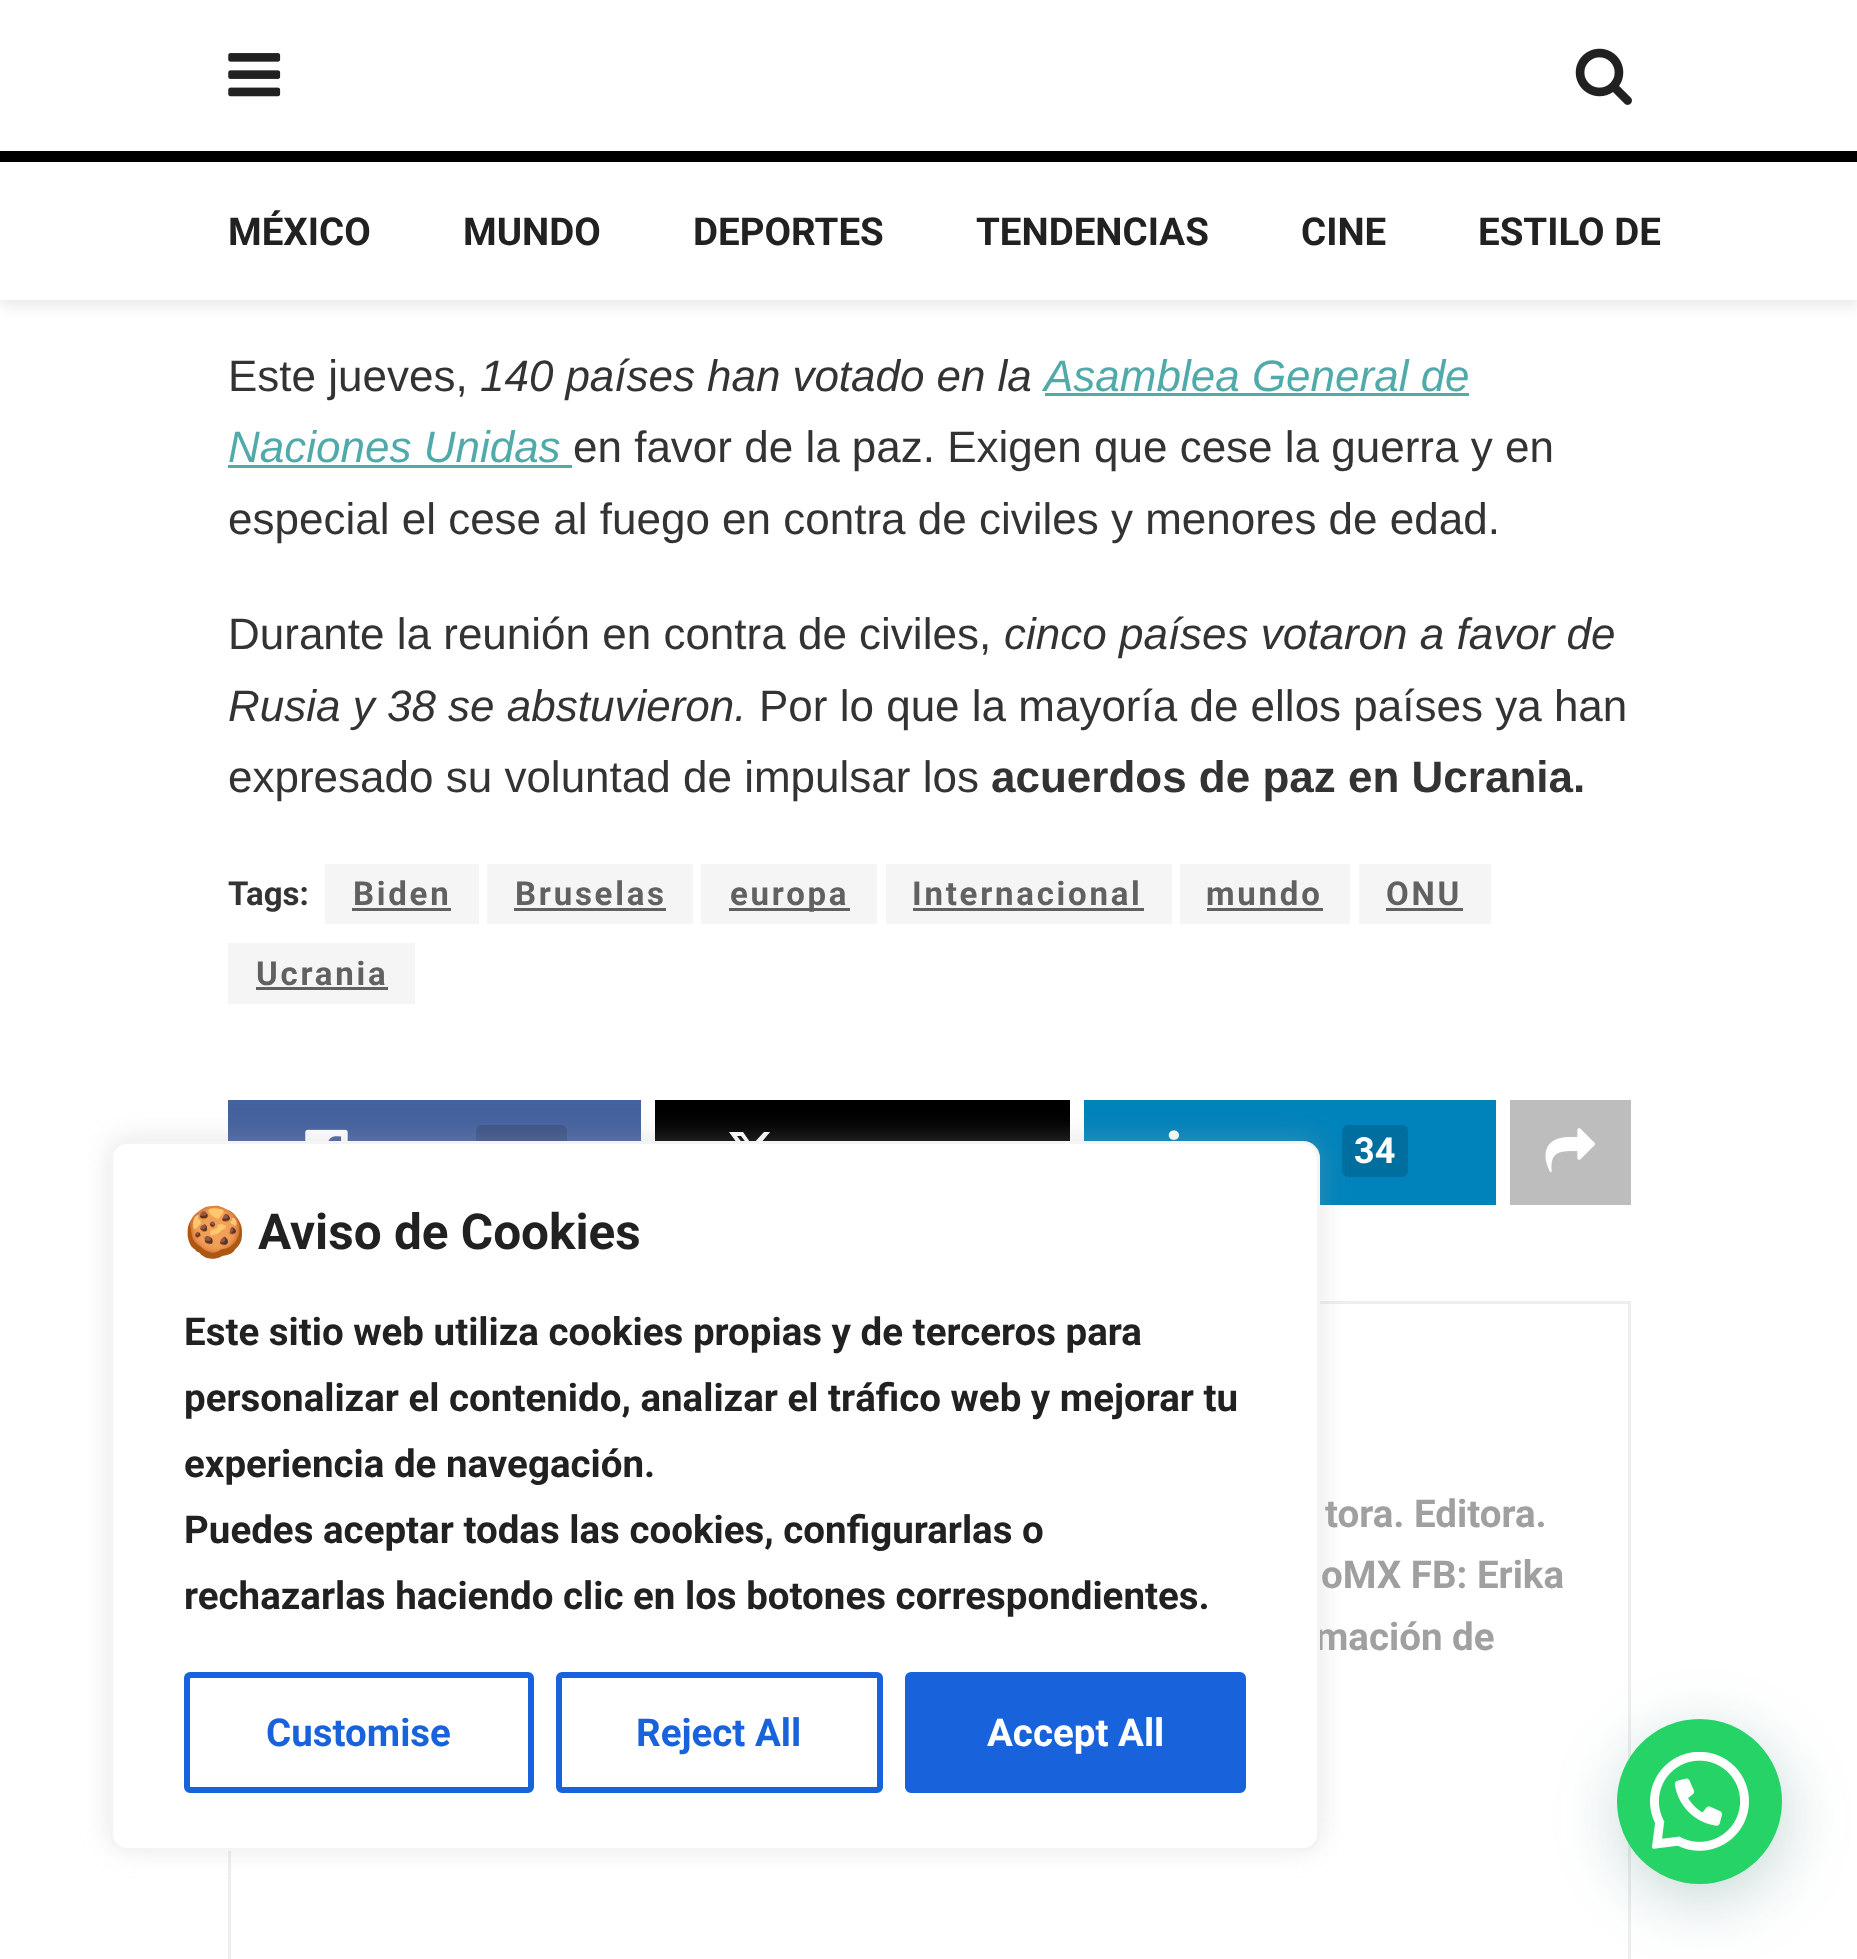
async function draw(canvas) {
  canvas.width = 1857
  canvas.height = 1959
  const ctx = canvas.getContext('2d')
  ctx.miterLimit = 4
  ctx.fontKerning = 'normal'
  async function loadImage(src) {
    const img = new Image()
    img.src = src
    await img.decode()
    return img
  }

  ctx.fillStyle = '#fff'
  ctx.fillRect(0, 0, 1857, 1959)
  ctx.fillStyle = '#0000001a'
  ctx.filter = 'blur(8px)'
  ctx.beginPath()
  ctx.rect(0, 6, 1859, 299)
  ctx.fill()
  ctx.filter = 'none'
  ctx.fillStyle = '#fff'
  ctx.fillRect(0, 0, 1857, 300)
  ctx.drawImage(await loadImage('image0.png'), 228, 53, 53, 44)
  ctx.drawImage(await loadImage('image1.png'), 1575, 48, 57, 57)
  ctx.fillStyle = '#000'
  ctx.fillRect(0, 151, 1857, 11)
  ctx.font = 'bold 38.5px Roboto'
  ctx.fillStyle = '#212121'
  ctx.fillText('MÉXICO', 228, 245)
  ctx.fillText('MUNDO', 463, 245)
  ctx.fillText('DEPORTES', 693, 245)
  ctx.fillText('TENDENCIAS', 976, 245)
  ctx.fillText('CINE', 1301, 245)
  ctx.fillText('ESTILO DE', 1478, 245)
  ctx.font = '44px Liberation Sans'
  ctx.fillStyle = '#333'
  ctx.fillText('Este jueves,', 228, 391)
  ctx.wordSpacing = '-0.25px'
  ctx.font = 'italic 44px Liberation Sans'
  ctx.fillText('140 países han votado en la', 480, 391)
  ctx.wordSpacing = '0px'
  ctx.fillStyle = '#50aaa9'
  ctx.fillText('Asamblea General de', 1044, 391)
  ctx.fillRect(1045, 393, 424, 3)
  ctx.fillText('Naciones Unidas', 228, 462)
  ctx.fillRect(228, 465, 344, 3)
  ctx.font = '44px Liberation Sans'
  ctx.fillStyle = '#333'
  ctx.fillText('en favor de la paz. Exigen que cese la guerra y en', 573, 462)
  ctx.fillText('especial el cese al fuego en contra de civiles y menores de edad.', 228, 534)
  ctx.fillText('Durante la reunión en contra de civiles,', 228, 649)
  ctx.font = 'italic 44px Liberation Sans'
  ctx.fillText('cinco países votaron a favor de', 1004, 649)
  ctx.fillText('Rusia y 38 se abstuvieron.', 228, 721)
  ctx.font = '44px Liberation Sans'
  ctx.fillText('Por lo que la mayoría de ellos países ya han', 759, 721)
  ctx.fillText('expresado su voluntad de impulsar los', 228, 792)
  ctx.font = 'bold 44px Liberation Sans'
  ctx.fillText('acuerdos de paz en Ucrania.', 991, 792)
  ctx.font = 'bold 33px Roboto'
  ctx.fillText('Tags:', 228, 905)
  ctx.fillStyle = '#f5f5f5'
  ctx.fillRect(325, 864, 154, 60)
  ctx.letterSpacing = '2.75px'
  ctx.fillStyle = '#616161'
  ctx.fillText('Biden', 353, 905)
  ctx.fillRect(352, 908, 99, 3)
  ctx.fillStyle = '#f5f5f5'
  ctx.fillRect(487, 864, 206, 60)
  ctx.fillStyle = '#616161'
  ctx.fillText('Bruselas', 515, 905)
  ctx.fillRect(514, 908, 152, 3)
  ctx.fillStyle = '#f5f5f5'
  ctx.fillRect(701, 864, 176, 60)
  ctx.fillStyle = '#616161'
  ctx.fillRect(729, 908, 121, 3)
  ctx.fillText('europa', 730, 905)
  ctx.fillStyle = '#f5f5f5'
  ctx.fillRect(886, 864, 286, 60)
  ctx.fillStyle = '#616161'
  ctx.fillText('Internacional', 912, 905)
  ctx.fillRect(913, 908, 231, 3)
  ctx.fillStyle = '#f5f5f5'
  ctx.fillRect(1180, 864, 170, 60)
  ctx.fillStyle = '#616161'
  ctx.fillText('mundo', 1206, 905)
  ctx.fillRect(1207, 908, 116, 3)
  ctx.fillStyle = '#f5f5f5'
  ctx.fillRect(1359, 864, 132, 60)
  ctx.fillStyle = '#616161'
  ctx.fillText('ONU', 1386, 905)
  ctx.fillRect(1386, 908, 77, 3)
  ctx.fillStyle = '#f5f5f5'
  ctx.fillRect(228, 943, 187, 61)
  ctx.fillStyle = '#616161'
  ctx.fillText('Ucrania', 256, 985)
  ctx.fillRect(256, 987, 132, 3)
  ctx.fillStyle = '#45629f'
  ctx.fillRect(228, 1100, 413, 41)
  ctx.drawImage(await loadImage('image2.png'), 305, 1129, 43, 12)
  ctx.fillStyle = '#3b5387'
  ctx.beginPath()
  ctx.roundRect(476, 1125, 91, 52, 6)
  ctx.fill()
  ctx.fillStyle = '#000'
  ctx.fillRect(655, 1100, 415, 41)
  ctx.fillStyle = '#fff'
  ctx.beginPath()
  ctx.moveTo(764, 1132)
  ctx.lineTo(770, 1132)
  ctx.lineTo(756, 1149)
  ctx.lineTo(773, 1172)
  ctx.lineTo(759, 1172)
  ctx.lineTo(749, 1158)
  ctx.lineTo(736, 1172)
  ctx.lineTo(729, 1172)
  ctx.lineTo(745, 1154)
  ctx.lineTo(729, 1132)
  ctx.lineTo(743, 1132)
  ctx.lineTo(752, 1145)
  ctx.closePath()
  ctx.moveTo(761, 1168)
  ctx.lineTo(765, 1168)
  ctx.lineTo(741, 1136)
  ctx.lineTo(737, 1136)
  ctx.closePath()
  ctx.fill()
  ctx.fillStyle = '#0083bb'
  ctx.fillRect(1084, 1100, 412, 105)
  ctx.drawImage(await loadImage('image3.png'), 1168, 1130, 11, 10)
  ctx.fillStyle = '#006f9f'
  ctx.beginPath()
  ctx.roundRect(1342, 1125, 66, 52, 6)
  ctx.fill()
  ctx.letterSpacing = '0px'
  ctx.font = 'bold 36px Roboto'
  ctx.fillStyle = '#fff'
  ctx.fillText('34', 1354, 1163)
  ctx.fillStyle = '#bdbdbd'
  ctx.fillRect(1510, 1100, 121, 105)
  ctx.drawImage(await loadImage('image4.png'), 1545, 1128, 50, 45)
  ctx.strokeStyle = '#eee'
  ctx.lineWidth = 3
  ctx.strokeRect(229.5, 1302.5, 1400, 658)
  ctx.font = 'bold 38.5px Roboto'
  ctx.fillStyle = '#a0a0a0'
  ctx.fillText('tora. Editora.', 1325, 1527)
  ctx.fillText('oMX FB: Erika', 1321, 1588)
  ctx.fillText('mación de', 1315, 1650)
  ctx.fillStyle = '#acabab4d'
  ctx.filter = 'blur(14px)'
  ctx.beginPath()
  ctx.roundRect(110, 1139, 1210, 709, 17)
  ctx.fill()
  ctx.filter = 'none'
  ctx.fillStyle = '#fff'
  ctx.beginPath()
  ctx.roundRect(111.5, 1142.5, 1207, 707, 15.5)
  ctx.fill()
  ctx.strokeStyle = '#f4f4f4'
  ctx.stroke()
  ctx.font = 'bold 49.5px Noto Color Emoji'
  ctx.fillStyle = '#212121'
  ctx.fillText('🍪', 184, 1249)
  ctx.font = 'bold 49.5px Roboto'
  ctx.fillText('Aviso de Cookies', 258, 1249)
  ctx.font = 'bold 38.5px Roboto'
  ctx.fillText('Este sitio web utiliza cookies propias y de terceros para', 184, 1345)
  ctx.fillText('personalizar el contenido, analizar el tráfico web y mejorar tu', 184, 1411)
  ctx.fillText('experiencia de navegación.', 184, 1477)
  ctx.fillText('Puedes aceptar todas las cookies, configurarlas o', 184, 1543)
  ctx.fillText('rechazarlas haciendo clic en los botones correspondientes.', 184, 1609)
  ctx.beginPath()
  ctx.roundRect(187, 1675, 344, 115, 3)
  ctx.strokeStyle = '#1863dc'
  ctx.lineWidth = 6
  ctx.stroke()
  ctx.fillStyle = '#1863dc'
  ctx.fillText('Customise', 266, 1746)
  ctx.beginPath()
  ctx.roundRect(559, 1675, 321, 115, 3)
  ctx.stroke()
  ctx.fillText('Reject All', 636, 1746)
  ctx.beginPath()
  ctx.roundRect(908, 1675, 335, 115, 3)
  ctx.fill()
  ctx.stroke()
  ctx.fillStyle = '#fff'
  ctx.fillText('Accept All', 987, 1746)
  ctx.fillStyle = '#075e543d'
  ctx.filter = 'blur(33px)'
  ctx.beginPath()
  ctx.roundRect(1620, 1735, 165, 165, 82.5)
  ctx.fill()
  ctx.filter = 'none'
  ctx.fillStyle = '#25d366'
  ctx.beginPath()
  ctx.arc(1699.5, 1801.5, 82.5, 0, 2 * Math.PI)
  ctx.fill()
  ctx.drawImage(await loadImage('image5.png'), 1650, 1752, 99, 99)
}

draw(document.querySelector('canvas'))
